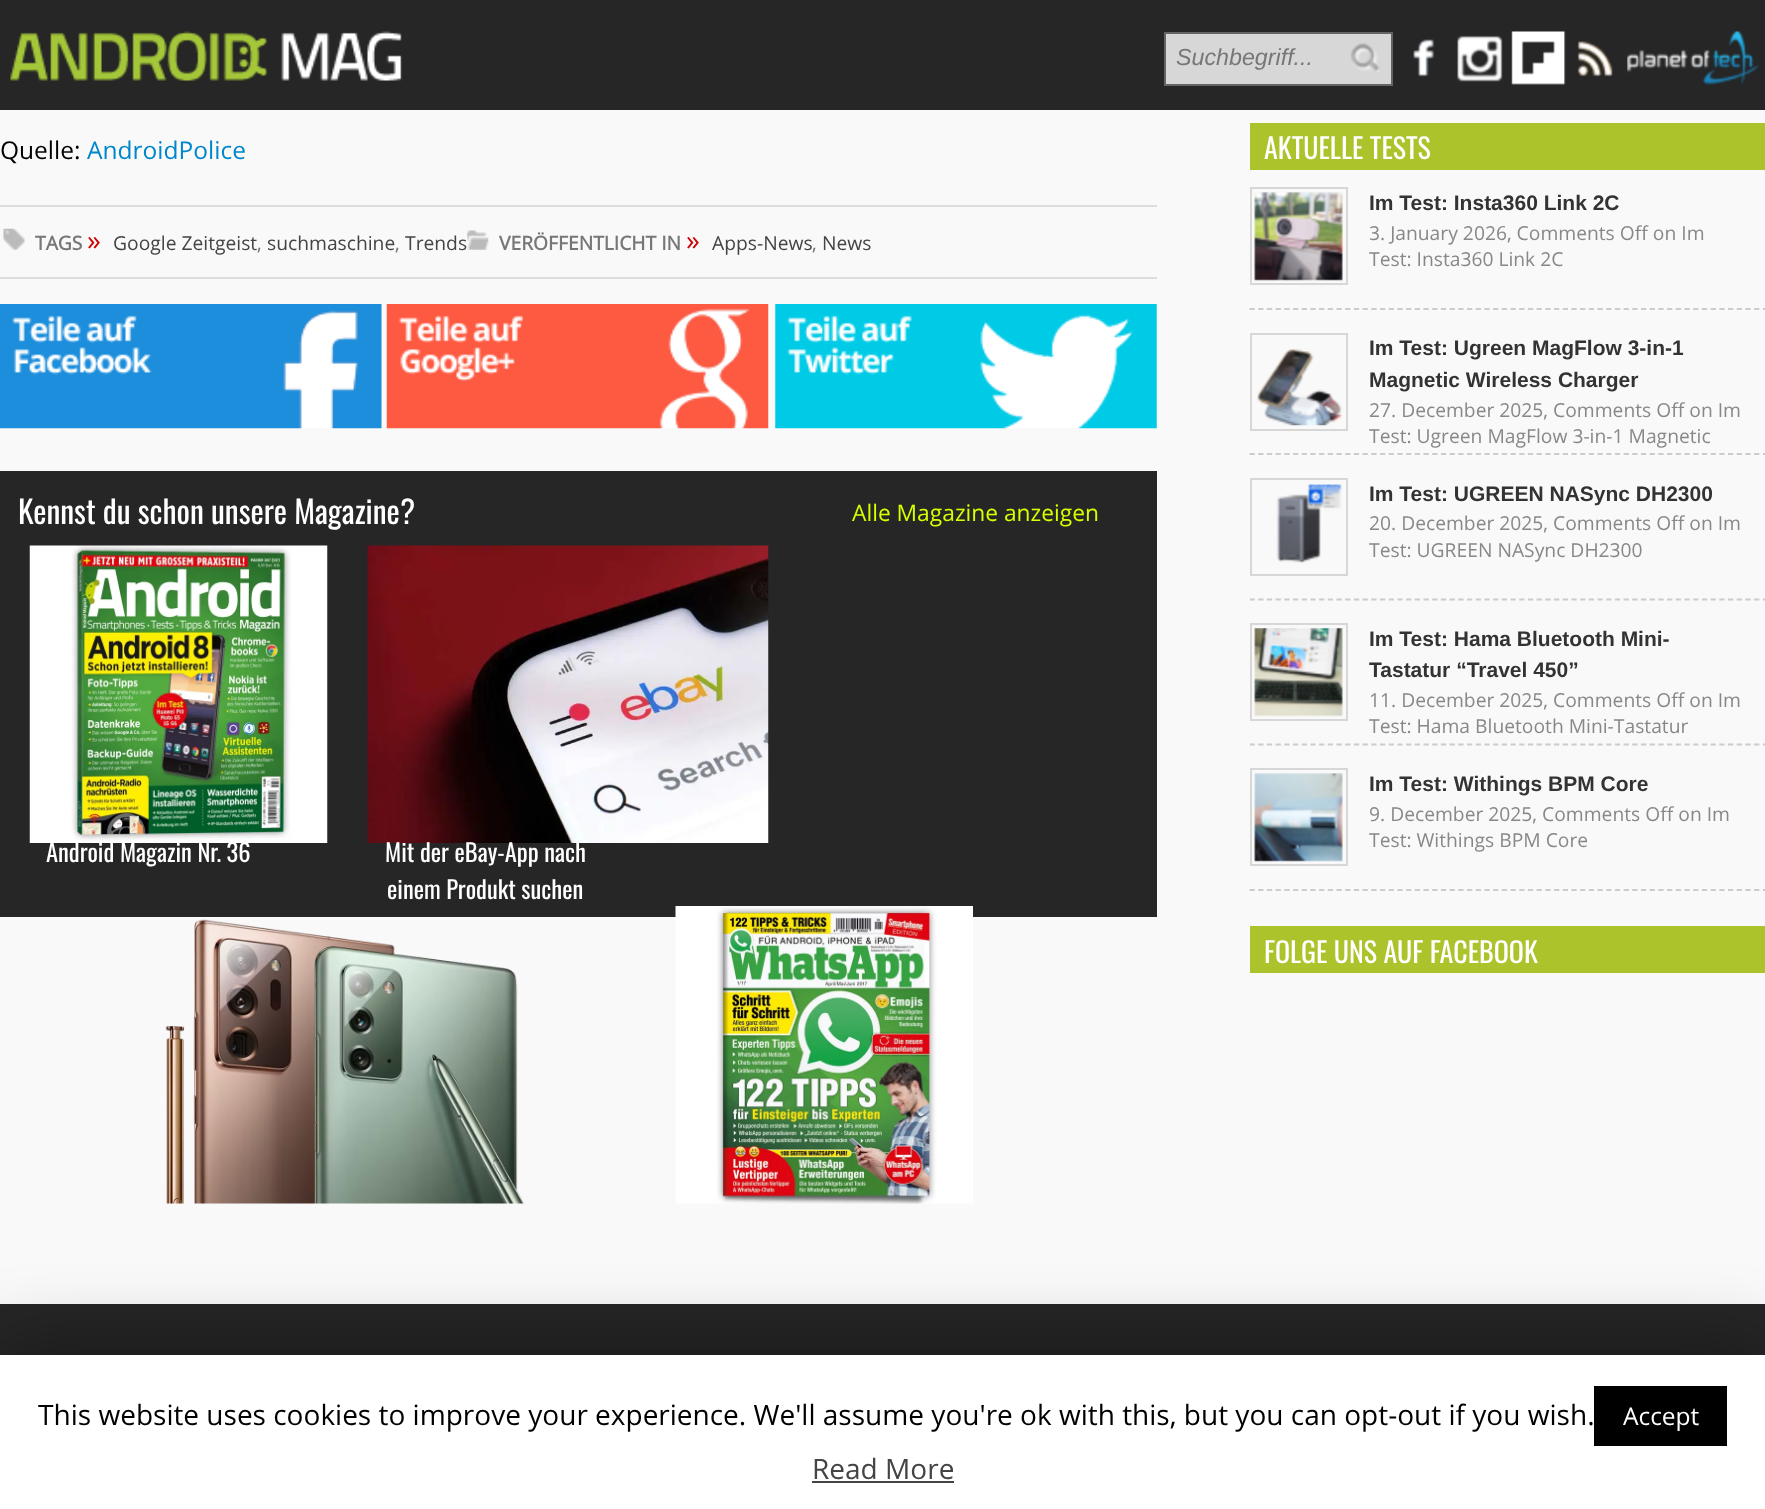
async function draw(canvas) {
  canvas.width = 1765
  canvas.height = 1509
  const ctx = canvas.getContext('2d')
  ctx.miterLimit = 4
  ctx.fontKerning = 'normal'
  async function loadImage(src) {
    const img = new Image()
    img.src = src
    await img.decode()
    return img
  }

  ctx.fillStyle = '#f9f9f9'
  ctx.fillRect(0, 0, 1765, 1509)
  ctx.fillStyle = '#262626'
  ctx.fillRect(0, 0, 1765, 110)
  ctx.drawImage(await loadImage('image0.png'), 10, 31, 392, 50)
  ctx.fillStyle = '#d7d7d7'
  ctx.beginPath()
  ctx.rect(1165, 33, 227, 52)
  ctx.fill()
  ctx.strokeStyle = '#656363'
  ctx.lineWidth = 2
  ctx.stroke()
  ctx.font = 'italic 23.25px Liberation Sans'
  ctx.fillStyle = '#777'
  ctx.fillText('Suchbegriff...', 1176, 65)
  ctx.drawImage(await loadImage('image1.png'), 1350, 43, 30, 29)
  ctx.drawImage(await loadImage('image2.png'), 1413, 39, 22, 38)
  ctx.drawImage(await loadImage('image3.png'), 1457, 35, 46, 47)
  ctx.drawImage(await loadImage('image4.png'), 1511, 31, 55, 54)
  ctx.drawImage(await loadImage('image5.png'), 1577, 41, 36, 36)
  ctx.drawImage(await loadImage('image6.png'), 1627, 31, 132, 54)
  ctx.font = '24.5px Open Sans'
  ctx.fillStyle = '#000'
  ctx.fillText('Quelle:', 0, 159)
  ctx.fillStyle = '#0086cb'
  ctx.fillText('AndroidPolice', 87, 159)
  ctx.fillStyle = '#ddd'
  ctx.fillRect(0, 205, 1157, 2)
  ctx.fillRect(0, 277, 1157, 2)
  ctx.drawImage(await loadImage('image7.png'), 3, 228, 22, 22)
  ctx.font = 'bold 19.25px Open Sans'
  ctx.fillStyle = '#777'
  ctx.fillText('TAGS', 35, 250)
  ctx.font = '28px Open Sans'
  ctx.fillStyle = '#d00000'
  ctx.fillText('»', 87, 250)
  ctx.font = '19.25px Open Sans'
  ctx.fillStyle = '#444'
  ctx.fillText('Google Zeitgeist', 113, 250)
  ctx.fillText('suchmaschine', 267, 250)
  ctx.fillText('Trends', 405, 250)
  ctx.fillStyle = '#777'
  ctx.fillText(',', 257, 250)
  ctx.fillText(',', 395, 250)
  ctx.drawImage(await loadImage('image8.png'), 467, 230, 22, 20)
  ctx.font = 'bold 19.25px Open Sans'
  ctx.fillText('VERÖFFENTLICHT IN', 499, 250)
  ctx.font = '28px Open Sans'
  ctx.fillStyle = '#d00000'
  ctx.fillText('»', 686, 250)
  ctx.font = '19.25px Open Sans'
  ctx.fillStyle = '#444'
  ctx.fillText('Apps-News', 712, 250)
  ctx.fillStyle = '#777'
  ctx.fillText(',', 812, 250)
  ctx.fillStyle = '#444'
  ctx.fillText('News', 822, 250)
  ctx.drawImage(await loadImage('image9.png'), 0, 304, 382, 125)
  ctx.drawImage(await loadImage('image10.png'), 386, 304, 383, 125)
  ctx.drawImage(await loadImage('image11.png'), 775, 304, 382, 125)
  ctx.fillStyle = '#262626'
  ctx.fillRect(0, 471, 1157, 446)
  ctx.font = '31.5px Oswald'
  ctx.fillStyle = '#fff'
  ctx.fillText('Kennst du schon unsere Magazine?', 18, 524)
  ctx.font = '22.75px Open Sans'
  ctx.fillStyle = '#d8ff00'
  ctx.fillText('Alle Magazine anzeigen', 852, 521)
  ctx.drawImage(await loadImage('image12.png'), 29, 545, 299, 298)
  ctx.font = '24.5px Oswald'
  ctx.fillStyle = '#fff'
  ctx.fillText('Android Magazin Nr. 36', 46, 862)
  ctx.drawImage(await loadImage('image13.png'), 367, 545, 402, 298)
  ctx.fillText('Mit der eBay-App nach', 385, 862)
  ctx.fillText('einem Produkt suchen', 387, 899)
  ctx.drawImage(await loadImage('image14.png'), 165, 919, 360, 285)
  ctx.drawImage(await loadImage('image15.png'), 675, 906, 298, 298)
  ctx.fillStyle = '#acc32b'
  ctx.fillRect(1250, 123, 515, 47)
  ctx.font = '28px Oswald'
  ctx.fillStyle = '#fff'
  ctx.fillText('AKTUELLE TESTS', 1264, 159)
  ctx.beginPath()
  ctx.moveTo(1249.5, 309)
  ctx.lineTo(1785, 309)
  ctx.strokeStyle = '#ccc'
  ctx.lineWidth = 1.8
  ctx.setLineDash([5.25, 3.45])
  ctx.stroke()
  ctx.strokeStyle = '#d7d7d7'
  ctx.lineWidth = 2
  ctx.setLineDash([])
  ctx.strokeRect(1251, 188, 96, 96)
  ctx.drawImage(await loadImage('image16.png'), 1254, 192, 89, 89)
  ctx.font = 'bold 21px Liberation Sans'
  ctx.fillStyle = '#333'
  ctx.fillText('Im Test: Insta360 Link 2C', 1369, 210)
  ctx.font = '19.25px Open Sans'
  ctx.fillStyle = '#888'
  ctx.fillText('3. January 2026, Comments Off on Im', 1369, 240)
  ctx.fillText('Test: Insta360 Link 2C', 1369, 266)
  ctx.beginPath()
  ctx.moveTo(1249.5, 454)
  ctx.lineTo(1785, 454)
  ctx.strokeStyle = '#ccc'
  ctx.lineWidth = 1.8
  ctx.setLineDash([5.25, 3.45])
  ctx.stroke()
  ctx.strokeStyle = '#d7d7d7'
  ctx.lineWidth = 2
  ctx.setLineDash([])
  ctx.strokeRect(1251, 334, 96, 96)
  ctx.drawImage(await loadImage('image17.png'), 1257, 349, 85, 77)
  ctx.font = 'bold 21px Liberation Sans'
  ctx.fillStyle = '#333'
  ctx.fillText('Im Test: Ugreen MagFlow 3-in-1', 1369, 355)
  ctx.fillText('Magnetic Wireless Charger', 1369, 387)
  ctx.font = '19.25px Open Sans'
  ctx.fillStyle = '#888'
  ctx.fillText('27. December 2025, Comments Off on Im', 1369, 417)
  ctx.fillText('Test: Ugreen MagFlow 3-in-1 Magnetic', 1369, 443)
  ctx.save()
  ctx.beginPath()
  ctx.rect(1250, 123, 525, 768)
  ctx.clip()
  ctx.beginPath()
  ctx.moveTo(1249.5, 599.5)
  ctx.lineTo(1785, 599.5)
  ctx.strokeStyle = '#ccc'
  ctx.lineWidth = 1.8
  ctx.setLineDash([5.25, 3.45])
  ctx.stroke()
  ctx.restore()
  ctx.strokeRect(1251, 479, 96, 96)
  ctx.drawImage(await loadImage('image18.png'), 1276, 484, 66, 79)
  ctx.font = 'bold 21px Liberation Sans'
  ctx.fillStyle = '#333'
  ctx.fillText('Im Test: UGREEN NASync DH2300', 1369, 501)
  ctx.font = '19.25px Open Sans'
  ctx.fillStyle = '#888'
  ctx.fillText('20. December 2025, Comments Off on Im', 1369, 530)
  ctx.fillText('Test: UGREEN NASync DH2300', 1369, 557)
  ctx.save()
  ctx.beginPath()
  ctx.rect(1250, 123, 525, 768)
  ctx.clip()
  ctx.beginPath()
  ctx.moveTo(1249.5, 744.5)
  ctx.lineTo(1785, 744.5)
  ctx.strokeStyle = '#ccc'
  ctx.lineWidth = 1.8
  ctx.setLineDash([5.25, 3.45])
  ctx.stroke()
  ctx.restore()
  ctx.strokeRect(1251, 624, 96, 96)
  ctx.drawImage(await loadImage('image19.png'), 1254, 628, 89, 89)
  ctx.font = 'bold 21px Liberation Sans'
  ctx.fillStyle = '#333'
  ctx.fillText('Im Test: Hama Bluetooth Mini-', 1369, 646)
  ctx.fillText('Tastatur “Travel 450”', 1369, 677)
  ctx.font = '19.25px Open Sans'
  ctx.fillStyle = '#888'
  ctx.fillText('11. December 2025, Comments Off on Im', 1369, 707)
  ctx.fillText('Test: Hama Bluetooth Mini-Tastatur', 1369, 733)
  ctx.beginPath()
  ctx.moveTo(1249.5, 890)
  ctx.lineTo(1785, 890)
  ctx.strokeStyle = '#ccc'
  ctx.lineWidth = 1.8
  ctx.setLineDash([5.25, 3.45])
  ctx.stroke()
  ctx.strokeStyle = '#d7d7d7'
  ctx.lineWidth = 2
  ctx.setLineDash([])
  ctx.strokeRect(1251, 769, 96, 96)
  ctx.drawImage(await loadImage('image20.png'), 1254, 773, 89, 89)
  ctx.font = 'bold 21px Liberation Sans'
  ctx.fillStyle = '#333'
  ctx.fillText('Im Test: Withings BPM Core', 1369, 791)
  ctx.font = '19.25px Open Sans'
  ctx.fillStyle = '#888'
  ctx.fillText('9. December 2025, Comments Off on Im', 1369, 821)
  ctx.fillText('Test: Withings BPM Core', 1369, 847)
  ctx.fillStyle = '#acc32b'
  ctx.fillRect(1250, 926, 515, 47)
  ctx.font = '28px Oswald'
  ctx.fillStyle = '#fff'
  ctx.fillText('FOLGE UNS AUF FACEBOOK', 1264, 963)
  ctx.fillStyle = '#262626'
  ctx.fillRect(0, 1304, 1765, 51)
  ctx.fillStyle = '#00000080'
  ctx.filter = 'blur(44px)'
  ctx.beginPath()
  ctx.rect(0, 1363, 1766, 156)
  ctx.fill()
  ctx.filter = 'none'
  ctx.fillStyle = '#fff'
  ctx.fillRect(0, 1355, 1765, 154)
  ctx.font = '28px Open Sans'
  ctx.fillStyle = '#000'
  ctx.fillText('This website uses cookies to improve your experience. We\'ll assume you\'re ok with this, but you can opt-out if you wish.', 38, 1425)
  ctx.fillRect(1594, 1386, 133, 60)
  ctx.font = '24.5px Open Sans'
  ctx.fillStyle = '#fff'
  ctx.fillText('Accept', 1623, 1425)
  ctx.font = '28px Open Sans'
  ctx.fillStyle = '#444'
  ctx.fillText('Read More', 812, 1479)
  ctx.fillRect(812, 1481, 142, 2)
}

draw(document.querySelector('canvas'))
